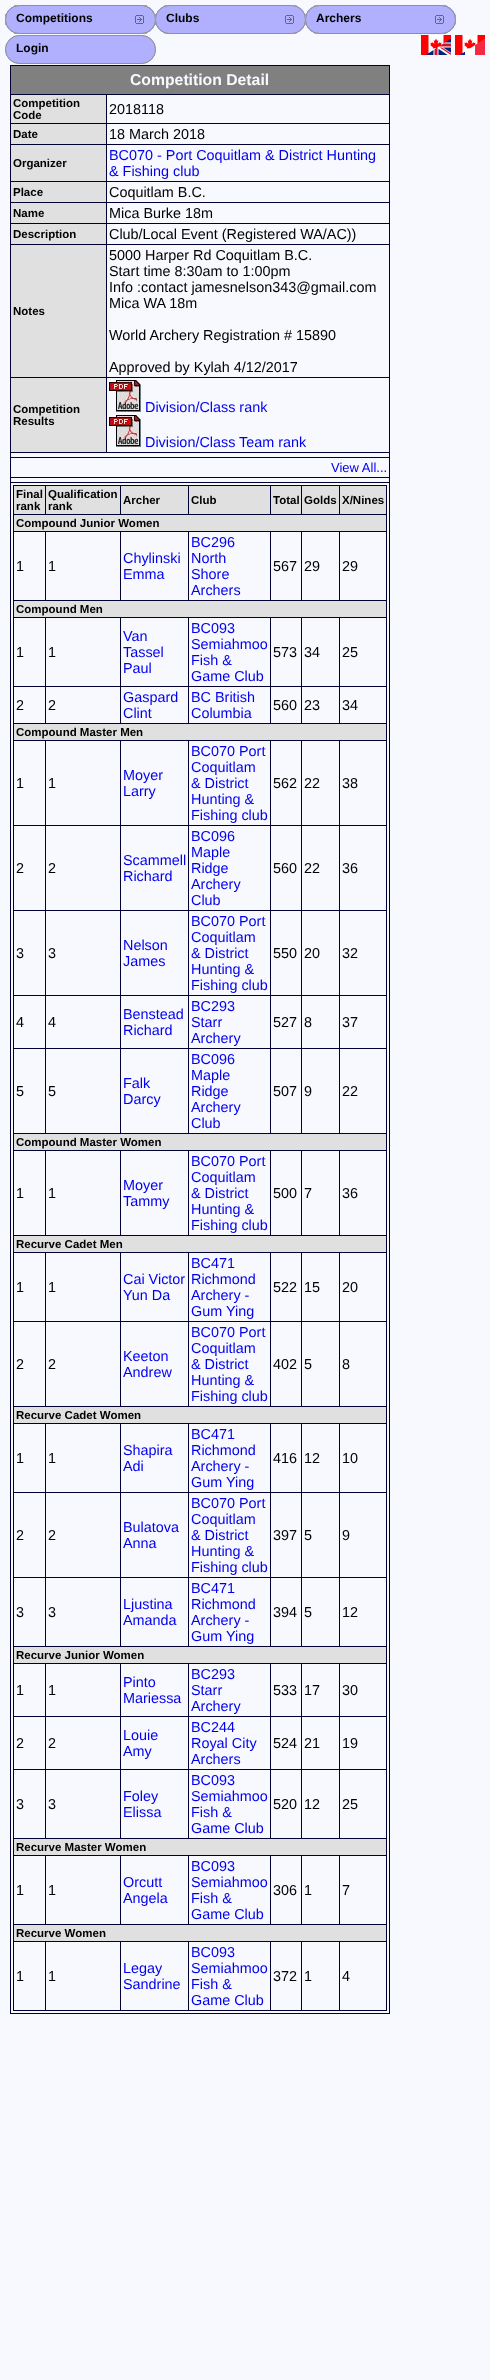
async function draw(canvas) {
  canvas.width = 490
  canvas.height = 2380
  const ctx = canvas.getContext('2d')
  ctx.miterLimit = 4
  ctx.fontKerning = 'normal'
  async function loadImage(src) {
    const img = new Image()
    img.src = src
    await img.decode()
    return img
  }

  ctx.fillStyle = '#f8f8ff'
  ctx.fillRect(0, 0, 490, 2380)
  ctx.beginPath()
  ctx.roundRect(5.5, 5.5, 150, 28, 14)
  ctx.strokeStyle = '#909090'
  ctx.stroke()
  ctx.beginPath()
  ctx.roundRect(155.5, 5.5, 150, 28, 14)
  ctx.stroke()
  ctx.beginPath()
  ctx.roundRect(5.5, 5.5, 150, 28, 14)
  ctx.stroke()
  ctx.beginPath()
  ctx.roundRect(5.5, 5.5, 150, 28, 14)
  ctx.stroke()
  ctx.beginPath()
  ctx.roundRect(5.5, 5.5, 150, 28, 14)
  ctx.stroke()
  ctx.beginPath()
  ctx.roundRect(5.5, 5.5, 150, 28, 14)
  ctx.stroke()
  ctx.beginPath()
  ctx.roundRect(5.5, 5.5, 150, 28, 14)
  ctx.stroke()
  ctx.beginPath()
  ctx.roundRect(5.5, 5.5, 150, 28, 14)
  ctx.stroke()
  ctx.beginPath()
  ctx.roundRect(5.5, 5.5, 150, 28, 14)
  ctx.stroke()
  ctx.beginPath()
  ctx.roundRect(5.5, 5.5, 150, 28, 14)
  ctx.stroke()
  ctx.beginPath()
  ctx.roundRect(5.5, 5.5, 150, 28, 14)
  ctx.stroke()
  ctx.beginPath()
  ctx.roundRect(5.5, 5.5, 150, 28, 14)
  ctx.stroke()
  ctx.beginPath()
  ctx.roundRect(5.5, 5.5, 150, 28, 14)
  ctx.stroke()
  ctx.beginPath()
  ctx.roundRect(5.5, 5.5, 150, 28, 14)
  ctx.stroke()
  ctx.beginPath()
  ctx.roundRect(5.5, 5.5, 150, 28, 14)
  ctx.stroke()
  ctx.beginPath()
  ctx.roundRect(5.5, 5.5, 150, 28, 14)
  ctx.stroke()
  ctx.fillStyle = '#b0b0ff'
  ctx.beginPath()
  ctx.roundRect(5, 5, 151, 29, 14.5)
  ctx.fill()
  ctx.drawImage(await loadImage('image0.png'), 135, 15, 9, 9)
  ctx.beginPath()
  ctx.roundRect(5.5, 5.5, 150, 28, 14)
  ctx.stroke()
  ctx.font = 'bold 12px Liberation Sans'
  ctx.fillStyle = '#000'
  ctx.fillText('Competitions', 16, 22)
  ctx.beginPath()
  ctx.roundRect(305.5, 5.5, 150, 28, 14)
  ctx.stroke()
  ctx.beginPath()
  ctx.roundRect(155.5, 5.5, 150, 28, 14)
  ctx.stroke()
  ctx.beginPath()
  ctx.roundRect(155.5, 5.5, 150, 28, 14)
  ctx.stroke()
  ctx.beginPath()
  ctx.roundRect(155.5, 5.5, 150, 28, 14)
  ctx.stroke()
  ctx.beginPath()
  ctx.roundRect(155.5, 5.5, 150, 28, 14)
  ctx.stroke()
  ctx.beginPath()
  ctx.roundRect(155.5, 5.5, 150, 28, 14)
  ctx.stroke()
  ctx.fillStyle = '#b0b0ff'
  ctx.beginPath()
  ctx.roundRect(155, 5, 151, 29, 14.5)
  ctx.fill()
  ctx.drawImage(await loadImage('image0.png'), 285, 15, 9, 9)
  ctx.beginPath()
  ctx.roundRect(155.5, 5.5, 150, 28, 14)
  ctx.stroke()
  ctx.fillStyle = '#000'
  ctx.fillText('Clubs', 166, 22)
  ctx.beginPath()
  ctx.roundRect(305.5, 5.5, 150, 28, 14)
  ctx.stroke()
  ctx.beginPath()
  ctx.roundRect(305.5, 5.5, 150, 28, 14)
  ctx.stroke()
  ctx.beginPath()
  ctx.roundRect(305.5, 5.5, 150, 28, 14)
  ctx.stroke()
  ctx.beginPath()
  ctx.roundRect(305.5, 5.5, 150, 28, 14)
  ctx.stroke()
  ctx.beginPath()
  ctx.roundRect(305.5, 5.5, 150, 28, 14)
  ctx.stroke()
  ctx.fillStyle = '#b0b0ff'
  ctx.beginPath()
  ctx.roundRect(305, 5, 151, 29, 14.5)
  ctx.fill()
  ctx.drawImage(await loadImage('image0.png'), 435, 15, 9, 9)
  ctx.beginPath()
  ctx.roundRect(305.5, 5.5, 150, 28, 14)
  ctx.stroke()
  ctx.fillStyle = '#000'
  ctx.fillText('Archers', 316, 22)
  ctx.beginPath()
  ctx.roundRect(5.5, 35.5, 150, 28, 14)
  ctx.stroke()
  ctx.fillStyle = '#b0b0ff'
  ctx.beginPath()
  ctx.roundRect(5.5, 35.5, 150, 28, 14)
  ctx.fill()
  ctx.stroke()
  ctx.fillStyle = '#000'
  ctx.fillText('Login', 16, 52)
  ctx.drawImage(await loadImage('image1.png'), 421, 35, 30, 20)
  ctx.drawImage(await loadImage('image2.png'), 455, 35, 30, 20)
  ctx.fillStyle = '#003'
  ctx.fillRect(10, 65, 380, 1)
  ctx.fillRect(389, 65, 1, 1949)
  ctx.fillRect(10, 2013, 380, 1)
  ctx.fillRect(10, 65, 1, 1949)
  ctx.fillStyle = '#808080'
  ctx.fillRect(11, 66, 378, 28)
  ctx.font = 'bold 15.75px Liberation Sans'
  ctx.fillStyle = '#f8f8ff'
  ctx.fillText('Competition Detail', 130, 85)
  ctx.fillStyle = '#e0e0e0'
  ctx.fillRect(11, 95, 95, 28)
  ctx.fillStyle = '#003'
  ctx.fillRect(106, 94, 284, 1)
  ctx.fillRect(106, 123, 284, 1)
  ctx.fillRect(106, 144, 284, 1)
  ctx.fillRect(106, 181, 284, 1)
  ctx.fillRect(106, 202, 284, 1)
  ctx.fillRect(106, 223, 284, 1)
  ctx.fillRect(106, 244, 284, 1)
  ctx.fillRect(106, 377, 284, 1)
  ctx.fillRect(10, 452, 380, 1)
  ctx.fillRect(106, 377, 1, 76)
  ctx.fillRect(10, 377, 97, 1)
  ctx.fillRect(106, 244, 1, 134)
  ctx.fillRect(10, 244, 97, 1)
  ctx.fillRect(106, 223, 1, 22)
  ctx.fillRect(10, 223, 97, 1)
  ctx.fillRect(106, 202, 1, 22)
  ctx.fillRect(10, 202, 97, 1)
  ctx.fillRect(106, 181, 1, 22)
  ctx.fillRect(10, 181, 97, 1)
  ctx.fillRect(106, 144, 1, 38)
  ctx.fillRect(10, 144, 97, 1)
  ctx.fillRect(106, 123, 1, 22)
  ctx.fillRect(10, 123, 97, 1)
  ctx.fillRect(106, 94, 1, 30)
  ctx.fillRect(10, 94, 97, 1)
  ctx.font = 'bold 11.5px Liberation Sans'
  ctx.fillStyle = '#000'
  ctx.fillText('Competition', 13, 107)
  ctx.fillText('Code', 13, 119)
  ctx.font = '14.4px Liberation Sans'
  ctx.fillText('2018118', 109, 114)
  ctx.fillStyle = '#e0e0e0'
  ctx.fillRect(11, 124, 95, 20)
  ctx.font = 'bold 11.5px Liberation Sans'
  ctx.fillStyle = '#000'
  ctx.fillText('Date', 13, 138)
  ctx.font = '14.4px Liberation Sans'
  ctx.fillText('18 March 2018', 109, 139)
  ctx.fillStyle = '#e0e0e0'
  ctx.fillRect(11, 145, 95, 36)
  ctx.font = 'bold 11.5px Liberation Sans'
  ctx.fillStyle = '#000'
  ctx.fillText('Organizer', 13, 167)
  ctx.font = '14.4px Liberation Sans'
  ctx.fillStyle = '#00e'
  ctx.fillText('BC070 - Port Coquitlam & District Hunting', 109, 160)
  ctx.fillText('& Fishing club', 109, 176)
  ctx.fillStyle = '#e0e0e0'
  ctx.fillRect(11, 182, 95, 20)
  ctx.font = 'bold 11.5px Liberation Sans'
  ctx.fillStyle = '#000'
  ctx.fillText('Place', 13, 196)
  ctx.font = '14.4px Liberation Sans'
  ctx.fillText('Coquitlam B.C.', 109, 197)
  ctx.fillStyle = '#e0e0e0'
  ctx.fillRect(11, 203, 95, 20)
  ctx.font = 'bold 11.5px Liberation Sans'
  ctx.fillStyle = '#000'
  ctx.fillText('Name', 13, 217)
  ctx.font = '14.4px Liberation Sans'
  ctx.fillText('Mica Burke 18m', 109, 218)
  ctx.fillStyle = '#e0e0e0'
  ctx.fillRect(11, 224, 95, 20)
  ctx.font = 'bold 11.5px Liberation Sans'
  ctx.fillStyle = '#000'
  ctx.fillText('Description', 13, 238)
  ctx.font = '14.4px Liberation Sans'
  ctx.fillText('Club/Local Event (Registered WA/AC))', 109, 239)
  ctx.fillStyle = '#e0e0e0'
  ctx.fillRect(11, 245, 95, 132)
  ctx.font = 'bold 11.5px Liberation Sans'
  ctx.fillStyle = '#000'
  ctx.fillText('Notes', 13, 315)
  ctx.font = '14.4px Liberation Sans'
  ctx.fillText('5000 Harper Rd Coquitlam B.C.', 109, 260)
  ctx.fillText('Start time 8:30am to 1:00pm', 109, 276)
  ctx.fillText('Info :contact jamesnelson343@gmail.com', 109, 292)
  ctx.fillText('Mica WA 18m', 109, 308)
  ctx.fillText('World Archery Registration # 15890', 109, 340)
  ctx.fillText('Approved by Kylah 4/12/2017', 109, 372)
  ctx.fillStyle = '#e0e0e0'
  ctx.fillRect(11, 378, 95, 74)
  ctx.font = 'bold 11.5px Liberation Sans'
  ctx.fillStyle = '#000'
  ctx.fillText('Competition', 13, 413)
  ctx.fillText('Results', 13, 425)
  ctx.drawImage(await loadImage('image3.png'), 109, 380, 32, 32)
  ctx.font = '14.4px Liberation Sans'
  ctx.fillStyle = '#00e'
  ctx.fillText('Division/Class rank', 145, 412)
  ctx.drawImage(await loadImage('image3.png'), 109, 415, 32, 32)
  ctx.fillText('Division/Class Team rank', 145, 447)
  ctx.fillStyle = '#003'
  ctx.fillRect(10, 457, 380, 1)
  ctx.font = '13px Liberation Sans'
  ctx.fillStyle = '#00e'
  ctx.fillText('View All...', 331, 472)
  ctx.fillStyle = '#003'
  ctx.fillRect(10, 477, 380, 1)
  ctx.fillRect(10, 482, 380, 1)
  ctx.fillRect(13, 485, 374, 1)
  ctx.fillRect(386, 485, 1, 1526)
  ctx.fillRect(13, 2010, 374, 1)
  ctx.fillRect(13, 485, 1, 1526)
  ctx.fillStyle = '#e0e0e0'
  ctx.fillRect(14, 486, 31, 28)
  ctx.font = 'bold 11.5px Liberation Sans'
  ctx.fillStyle = '#000'
  ctx.fillText('Final', 16, 498)
  ctx.fillText('rank', 16, 510)
  ctx.fillStyle = '#e0e0e0'
  ctx.fillRect(46, 486, 74, 28)
  ctx.fillStyle = '#003'
  ctx.fillRect(13, 514, 374, 1)
  ctx.fillRect(45, 485, 1, 30)
  ctx.fillStyle = '#000'
  ctx.fillText('Qualification', 48, 498)
  ctx.fillText('rank', 48, 510)
  ctx.fillStyle = '#e0e0e0'
  ctx.fillRect(121, 486, 67, 28)
  ctx.fillStyle = '#003'
  ctx.fillRect(120, 485, 1, 30)
  ctx.fillStyle = '#000'
  ctx.fillText('Archer', 123, 504)
  ctx.fillStyle = '#e0e0e0'
  ctx.fillRect(189, 486, 81, 28)
  ctx.fillStyle = '#003'
  ctx.fillRect(188, 485, 1, 30)
  ctx.fillStyle = '#000'
  ctx.fillText('Club', 191, 504)
  ctx.fillStyle = '#e0e0e0'
  ctx.fillRect(271, 486, 30, 28)
  ctx.fillStyle = '#003'
  ctx.fillRect(270, 485, 1, 30)
  ctx.fillStyle = '#000'
  ctx.fillText('Total', 273, 504)
  ctx.fillStyle = '#e0e0e0'
  ctx.fillRect(302, 486, 37, 28)
  ctx.fillStyle = '#003'
  ctx.fillRect(301, 485, 1, 30)
  ctx.fillStyle = '#000'
  ctx.fillText('Golds', 304, 504)
  ctx.fillStyle = '#e0e0e0'
  ctx.fillRect(340, 486, 46, 28)
  ctx.fillStyle = '#003'
  ctx.fillRect(339, 485, 1, 30)
  ctx.fillStyle = '#000'
  ctx.fillText('X/Nines', 342, 504)
  ctx.fillStyle = '#e0e0e0'
  ctx.fillRect(14, 515, 372, 16)
  ctx.fillStyle = '#000'
  ctx.fillText('Compound Junior Women', 16, 527)
  ctx.fillStyle = '#003'
  ctx.fillRect(339, 531, 48, 1)
  ctx.fillRect(13, 600, 374, 1)
  ctx.fillRect(339, 531, 1, 70)
  ctx.fillRect(301, 531, 39, 1)
  ctx.fillRect(301, 531, 1, 70)
  ctx.fillRect(270, 531, 32, 1)
  ctx.fillRect(270, 531, 1, 70)
  ctx.fillRect(188, 531, 83, 1)
  ctx.fillRect(188, 531, 1, 70)
  ctx.fillRect(120, 531, 69, 1)
  ctx.fillRect(120, 531, 1, 70)
  ctx.fillRect(45, 531, 76, 1)
  ctx.fillRect(45, 531, 1, 70)
  ctx.fillRect(13, 531, 33, 1)
  ctx.font = '14.4px Liberation Sans'
  ctx.fillStyle = '#000'
  ctx.fillText('1', 16, 571)
  ctx.fillText('1', 48, 571)
  ctx.fillStyle = '#00e'
  ctx.fillText('Chylinski', 123, 563)
  ctx.fillText('Emma', 123, 579)
  ctx.fillText('BC296', 191, 547)
  ctx.fillText('North', 191, 563)
  ctx.fillText('Shore', 191, 579)
  ctx.fillText('Archers', 191, 595)
  ctx.fillStyle = '#000'
  ctx.fillText('567', 273, 571)
  ctx.fillText('29', 304, 571)
  ctx.fillText('29', 342, 571)
  ctx.fillStyle = '#e0e0e0'
  ctx.fillRect(14, 601, 372, 16)
  ctx.font = 'bold 11.5px Liberation Sans'
  ctx.fillStyle = '#000'
  ctx.fillText('Compound Men', 16, 613)
  ctx.fillStyle = '#003'
  ctx.fillRect(339, 617, 48, 1)
  ctx.fillRect(339, 686, 48, 1)
  ctx.fillRect(13, 723, 374, 1)
  ctx.fillRect(339, 686, 1, 38)
  ctx.fillRect(301, 686, 39, 1)
  ctx.fillRect(339, 617, 1, 70)
  ctx.fillRect(301, 617, 39, 1)
  ctx.fillRect(301, 686, 1, 38)
  ctx.fillRect(270, 686, 32, 1)
  ctx.fillRect(301, 617, 1, 70)
  ctx.fillRect(270, 617, 32, 1)
  ctx.fillRect(270, 686, 1, 38)
  ctx.fillRect(188, 686, 83, 1)
  ctx.fillRect(270, 617, 1, 70)
  ctx.fillRect(188, 617, 83, 1)
  ctx.fillRect(188, 686, 1, 38)
  ctx.fillRect(120, 686, 69, 1)
  ctx.fillRect(188, 617, 1, 70)
  ctx.fillRect(120, 617, 69, 1)
  ctx.fillRect(120, 686, 1, 38)
  ctx.fillRect(45, 686, 76, 1)
  ctx.fillRect(120, 617, 1, 70)
  ctx.fillRect(45, 617, 76, 1)
  ctx.fillRect(45, 686, 1, 38)
  ctx.fillRect(13, 686, 33, 1)
  ctx.fillRect(45, 617, 1, 70)
  ctx.fillRect(13, 617, 33, 1)
  ctx.font = '14.4px Liberation Sans'
  ctx.fillStyle = '#000'
  ctx.fillText('1', 16, 657)
  ctx.fillText('1', 48, 657)
  ctx.fillStyle = '#00e'
  ctx.fillText('Van', 123, 641)
  ctx.fillText('Tassel', 123, 657)
  ctx.fillText('Paul', 123, 673)
  ctx.fillText('BC093', 191, 633)
  ctx.fillText('Semiahmoo', 191, 649)
  ctx.fillText('Fish &', 191, 665)
  ctx.fillText('Game Club', 191, 681)
  ctx.fillStyle = '#000'
  ctx.fillText('573', 273, 657)
  ctx.fillText('34', 304, 657)
  ctx.fillText('25', 342, 657)
  ctx.fillText('2', 16, 710)
  ctx.fillText('2', 48, 710)
  ctx.fillStyle = '#00e'
  ctx.fillText('Gaspard', 123, 702)
  ctx.fillText('Clint', 123, 718)
  ctx.fillText('BC British', 191, 702)
  ctx.fillText('Columbia', 191, 718)
  ctx.fillStyle = '#000'
  ctx.fillText('560', 273, 710)
  ctx.fillText('23', 304, 710)
  ctx.fillText('34', 342, 710)
  ctx.fillStyle = '#e0e0e0'
  ctx.fillRect(14, 724, 372, 16)
  ctx.font = 'bold 11.5px Liberation Sans'
  ctx.fillStyle = '#000'
  ctx.fillText('Compound Master Men', 16, 736)
  ctx.fillStyle = '#003'
  ctx.fillRect(339, 740, 48, 1)
  ctx.fillRect(339, 825, 48, 1)
  ctx.fillRect(339, 910, 48, 1)
  ctx.fillRect(339, 995, 48, 1)
  ctx.fillRect(339, 1048, 48, 1)
  ctx.fillRect(13, 1133, 374, 1)
  ctx.fillRect(339, 1048, 1, 86)
  ctx.fillRect(301, 1048, 39, 1)
  ctx.fillRect(339, 995, 1, 54)
  ctx.fillRect(301, 995, 39, 1)
  ctx.fillRect(339, 910, 1, 86)
  ctx.fillRect(301, 910, 39, 1)
  ctx.fillRect(339, 825, 1, 86)
  ctx.fillRect(301, 825, 39, 1)
  ctx.fillRect(339, 740, 1, 86)
  ctx.fillRect(301, 740, 39, 1)
  ctx.fillRect(301, 1048, 1, 86)
  ctx.fillRect(270, 1048, 32, 1)
  ctx.fillRect(301, 995, 1, 54)
  ctx.fillRect(270, 995, 32, 1)
  ctx.fillRect(301, 910, 1, 86)
  ctx.fillRect(270, 910, 32, 1)
  ctx.fillRect(301, 825, 1, 86)
  ctx.fillRect(270, 825, 32, 1)
  ctx.fillRect(301, 740, 1, 86)
  ctx.fillRect(270, 740, 32, 1)
  ctx.fillRect(270, 1048, 1, 86)
  ctx.fillRect(188, 1048, 83, 1)
  ctx.fillRect(270, 995, 1, 54)
  ctx.fillRect(188, 995, 83, 1)
  ctx.fillRect(270, 910, 1, 86)
  ctx.fillRect(188, 910, 83, 1)
  ctx.fillRect(270, 825, 1, 86)
  ctx.fillRect(188, 825, 83, 1)
  ctx.fillRect(270, 740, 1, 86)
  ctx.fillRect(188, 740, 83, 1)
  ctx.fillRect(188, 1048, 1, 86)
  ctx.fillRect(120, 1048, 69, 1)
  ctx.fillRect(188, 995, 1, 54)
  ctx.fillRect(120, 995, 69, 1)
  ctx.fillRect(188, 910, 1, 86)
  ctx.fillRect(120, 910, 69, 1)
  ctx.fillRect(188, 825, 1, 86)
  ctx.fillRect(120, 825, 69, 1)
  ctx.fillRect(188, 740, 1, 86)
  ctx.fillRect(120, 740, 69, 1)
  ctx.fillRect(120, 1048, 1, 86)
  ctx.fillRect(45, 1048, 76, 1)
  ctx.fillRect(120, 995, 1, 54)
  ctx.fillRect(45, 995, 76, 1)
  ctx.fillRect(120, 910, 1, 86)
  ctx.fillRect(45, 910, 76, 1)
  ctx.fillRect(120, 825, 1, 86)
  ctx.fillRect(45, 825, 76, 1)
  ctx.fillRect(120, 740, 1, 86)
  ctx.fillRect(45, 740, 76, 1)
  ctx.fillRect(45, 1048, 1, 86)
  ctx.fillRect(13, 1048, 33, 1)
  ctx.fillRect(45, 995, 1, 54)
  ctx.fillRect(13, 995, 33, 1)
  ctx.fillRect(45, 910, 1, 86)
  ctx.fillRect(13, 910, 33, 1)
  ctx.fillRect(45, 825, 1, 86)
  ctx.fillRect(13, 825, 33, 1)
  ctx.fillRect(45, 740, 1, 86)
  ctx.fillRect(13, 740, 33, 1)
  ctx.font = '14.4px Liberation Sans'
  ctx.fillStyle = '#000'
  ctx.fillText('1', 16, 788)
  ctx.fillText('1', 48, 788)
  ctx.fillStyle = '#00e'
  ctx.fillText('Moyer', 123, 780)
  ctx.fillText('Larry', 123, 796)
  ctx.fillText('BC070 Port', 191, 756)
  ctx.fillText('Coquitlam', 191, 772)
  ctx.fillText('& District', 191, 788)
  ctx.fillText('Hunting &', 191, 804)
  ctx.fillText('Fishing club', 191, 820)
  ctx.fillStyle = '#000'
  ctx.fillText('562', 273, 788)
  ctx.fillText('22', 304, 788)
  ctx.fillText('38', 342, 788)
  ctx.fillText('2', 16, 873)
  ctx.fillText('2', 48, 873)
  ctx.fillStyle = '#00e'
  ctx.fillText('Scammell', 123, 865)
  ctx.fillText('Richard', 123, 881)
  ctx.fillText('BC096', 191, 841)
  ctx.fillText('Maple', 191, 857)
  ctx.fillText('Ridge', 191, 873)
  ctx.fillText('Archery', 191, 889)
  ctx.fillText('Club', 191, 905)
  ctx.fillStyle = '#000'
  ctx.fillText('560', 273, 873)
  ctx.fillText('22', 304, 873)
  ctx.fillText('36', 342, 873)
  ctx.fillText('3', 16, 958)
  ctx.fillText('3', 48, 958)
  ctx.fillStyle = '#00e'
  ctx.fillText('Nelson', 123, 950)
  ctx.fillText('James', 123, 966)
  ctx.fillText('BC070 Port', 191, 926)
  ctx.fillText('Coquitlam', 191, 942)
  ctx.fillText('& District', 191, 958)
  ctx.fillText('Hunting &', 191, 974)
  ctx.fillText('Fishing club', 191, 990)
  ctx.fillStyle = '#000'
  ctx.fillText('550', 273, 958)
  ctx.fillText('20', 304, 958)
  ctx.fillText('32', 342, 958)
  ctx.fillText('4', 16, 1027)
  ctx.fillText('4', 48, 1027)
  ctx.fillStyle = '#00e'
  ctx.fillText('Benstead', 123, 1019)
  ctx.fillText('Richard', 123, 1035)
  ctx.fillText('BC293', 191, 1011)
  ctx.fillText('Starr', 191, 1027)
  ctx.fillText('Archery', 191, 1043)
  ctx.fillStyle = '#000'
  ctx.fillText('527', 273, 1027)
  ctx.fillText('8', 304, 1027)
  ctx.fillText('37', 342, 1027)
  ctx.fillText('5', 16, 1096)
  ctx.fillText('5', 48, 1096)
  ctx.fillStyle = '#00e'
  ctx.fillText('Falk', 123, 1088)
  ctx.fillText('Darcy', 123, 1104)
  ctx.fillText('BC096', 191, 1064)
  ctx.fillText('Maple', 191, 1080)
  ctx.fillText('Ridge', 191, 1096)
  ctx.fillText('Archery', 191, 1112)
  ctx.fillText('Club', 191, 1128)
  ctx.fillStyle = '#000'
  ctx.fillText('507', 273, 1096)
  ctx.fillText('9', 304, 1096)
  ctx.fillText('22', 342, 1096)
  ctx.fillStyle = '#e0e0e0'
  ctx.fillRect(14, 1134, 372, 16)
  ctx.font = 'bold 11.5px Liberation Sans'
  ctx.fillStyle = '#000'
  ctx.fillText('Compound Master Women', 16, 1146)
  ctx.fillStyle = '#003'
  ctx.fillRect(339, 1150, 48, 1)
  ctx.fillRect(13, 1235, 374, 1)
  ctx.fillRect(339, 1150, 1, 86)
  ctx.fillRect(301, 1150, 39, 1)
  ctx.fillRect(301, 1150, 1, 86)
  ctx.fillRect(270, 1150, 32, 1)
  ctx.fillRect(270, 1150, 1, 86)
  ctx.fillRect(188, 1150, 83, 1)
  ctx.fillRect(188, 1150, 1, 86)
  ctx.fillRect(120, 1150, 69, 1)
  ctx.fillRect(120, 1150, 1, 86)
  ctx.fillRect(45, 1150, 76, 1)
  ctx.fillRect(45, 1150, 1, 86)
  ctx.fillRect(13, 1150, 33, 1)
  ctx.font = '14.4px Liberation Sans'
  ctx.fillStyle = '#000'
  ctx.fillText('1', 16, 1198)
  ctx.fillText('1', 48, 1198)
  ctx.fillStyle = '#00e'
  ctx.fillText('Moyer', 123, 1190)
  ctx.fillText('Tammy', 123, 1206)
  ctx.fillText('BC070 Port', 191, 1166)
  ctx.fillText('Coquitlam', 191, 1182)
  ctx.fillText('& District', 191, 1198)
  ctx.fillText('Hunting &', 191, 1214)
  ctx.fillText('Fishing club', 191, 1230)
  ctx.fillStyle = '#000'
  ctx.fillText('500', 273, 1198)
  ctx.fillText('7', 304, 1198)
  ctx.fillText('36', 342, 1198)
  ctx.fillStyle = '#e0e0e0'
  ctx.fillRect(14, 1236, 372, 16)
  ctx.font = 'bold 11.5px Liberation Sans'
  ctx.fillStyle = '#000'
  ctx.fillText('Recurve Cadet Men', 16, 1248)
  ctx.fillStyle = '#003'
  ctx.fillRect(339, 1252, 48, 1)
  ctx.fillRect(339, 1321, 48, 1)
  ctx.fillRect(13, 1406, 374, 1)
  ctx.fillRect(339, 1321, 1, 86)
  ctx.fillRect(301, 1321, 39, 1)
  ctx.fillRect(339, 1252, 1, 70)
  ctx.fillRect(301, 1252, 39, 1)
  ctx.fillRect(301, 1321, 1, 86)
  ctx.fillRect(270, 1321, 32, 1)
  ctx.fillRect(301, 1252, 1, 70)
  ctx.fillRect(270, 1252, 32, 1)
  ctx.fillRect(270, 1321, 1, 86)
  ctx.fillRect(188, 1321, 83, 1)
  ctx.fillRect(270, 1252, 1, 70)
  ctx.fillRect(188, 1252, 83, 1)
  ctx.fillRect(188, 1321, 1, 86)
  ctx.fillRect(120, 1321, 69, 1)
  ctx.fillRect(188, 1252, 1, 70)
  ctx.fillRect(120, 1252, 69, 1)
  ctx.fillRect(120, 1321, 1, 86)
  ctx.fillRect(45, 1321, 76, 1)
  ctx.fillRect(120, 1252, 1, 70)
  ctx.fillRect(45, 1252, 76, 1)
  ctx.fillRect(45, 1321, 1, 86)
  ctx.fillRect(13, 1321, 33, 1)
  ctx.fillRect(45, 1252, 1, 70)
  ctx.fillRect(13, 1252, 33, 1)
  ctx.font = '14.4px Liberation Sans'
  ctx.fillStyle = '#000'
  ctx.fillText('1', 16, 1292)
  ctx.fillText('1', 48, 1292)
  ctx.fillStyle = '#00e'
  ctx.fillText('Cai Victor', 123, 1284)
  ctx.fillText('Yun Da', 123, 1300)
  ctx.fillText('BC471', 191, 1268)
  ctx.fillText('Richmond', 191, 1284)
  ctx.fillText('Archery -', 191, 1300)
  ctx.fillText('Gum Ying', 191, 1316)
  ctx.fillStyle = '#000'
  ctx.fillText('522', 273, 1292)
  ctx.fillText('15', 304, 1292)
  ctx.fillText('20', 342, 1292)
  ctx.fillText('2', 16, 1369)
  ctx.fillText('2', 48, 1369)
  ctx.fillStyle = '#00e'
  ctx.fillText('Keeton', 123, 1361)
  ctx.fillText('Andrew', 123, 1377)
  ctx.fillText('BC070 Port', 191, 1337)
  ctx.fillText('Coquitlam', 191, 1353)
  ctx.fillText('& District', 191, 1369)
  ctx.fillText('Hunting &', 191, 1385)
  ctx.fillText('Fishing club', 191, 1401)
  ctx.fillStyle = '#000'
  ctx.fillText('402', 273, 1369)
  ctx.fillText('5', 304, 1369)
  ctx.fillText('8', 342, 1369)
  ctx.fillStyle = '#e0e0e0'
  ctx.fillRect(14, 1407, 372, 16)
  ctx.font = 'bold 11.5px Liberation Sans'
  ctx.fillStyle = '#000'
  ctx.fillText('Recurve Cadet Women', 16, 1419)
  ctx.fillStyle = '#003'
  ctx.fillRect(339, 1423, 48, 1)
  ctx.fillRect(339, 1492, 48, 1)
  ctx.fillRect(339, 1577, 48, 1)
  ctx.fillRect(13, 1646, 374, 1)
  ctx.fillRect(339, 1577, 1, 70)
  ctx.fillRect(301, 1577, 39, 1)
  ctx.fillRect(339, 1492, 1, 86)
  ctx.fillRect(301, 1492, 39, 1)
  ctx.fillRect(339, 1423, 1, 70)
  ctx.fillRect(301, 1423, 39, 1)
  ctx.fillRect(301, 1577, 1, 70)
  ctx.fillRect(270, 1577, 32, 1)
  ctx.fillRect(301, 1492, 1, 86)
  ctx.fillRect(270, 1492, 32, 1)
  ctx.fillRect(301, 1423, 1, 70)
  ctx.fillRect(270, 1423, 32, 1)
  ctx.fillRect(270, 1577, 1, 70)
  ctx.fillRect(188, 1577, 83, 1)
  ctx.fillRect(270, 1492, 1, 86)
  ctx.fillRect(188, 1492, 83, 1)
  ctx.fillRect(270, 1423, 1, 70)
  ctx.fillRect(188, 1423, 83, 1)
  ctx.fillRect(188, 1577, 1, 70)
  ctx.fillRect(120, 1577, 69, 1)
  ctx.fillRect(188, 1492, 1, 86)
  ctx.fillRect(120, 1492, 69, 1)
  ctx.fillRect(188, 1423, 1, 70)
  ctx.fillRect(120, 1423, 69, 1)
  ctx.fillRect(120, 1577, 1, 70)
  ctx.fillRect(45, 1577, 76, 1)
  ctx.fillRect(120, 1492, 1, 86)
  ctx.fillRect(45, 1492, 76, 1)
  ctx.fillRect(120, 1423, 1, 70)
  ctx.fillRect(45, 1423, 76, 1)
  ctx.fillRect(45, 1577, 1, 70)
  ctx.fillRect(13, 1577, 33, 1)
  ctx.fillRect(45, 1492, 1, 86)
  ctx.fillRect(13, 1492, 33, 1)
  ctx.fillRect(45, 1423, 1, 70)
  ctx.fillRect(13, 1423, 33, 1)
  ctx.font = '14.4px Liberation Sans'
  ctx.fillStyle = '#000'
  ctx.fillText('1', 16, 1463)
  ctx.fillText('1', 48, 1463)
  ctx.fillStyle = '#00e'
  ctx.fillText('Shapira', 123, 1455)
  ctx.fillText('Adi', 123, 1471)
  ctx.fillText('BC471', 191, 1439)
  ctx.fillText('Richmond', 191, 1455)
  ctx.fillText('Archery -', 191, 1471)
  ctx.fillText('Gum Ying', 191, 1487)
  ctx.fillStyle = '#000'
  ctx.fillText('416', 273, 1463)
  ctx.fillText('12', 304, 1463)
  ctx.fillText('10', 342, 1463)
  ctx.fillText('2', 16, 1540)
  ctx.fillText('2', 48, 1540)
  ctx.fillStyle = '#00e'
  ctx.fillText('Bulatova', 123, 1532)
  ctx.fillText('Anna', 123, 1548)
  ctx.fillText('BC070 Port', 191, 1508)
  ctx.fillText('Coquitlam', 191, 1524)
  ctx.fillText('& District', 191, 1540)
  ctx.fillText('Hunting &', 191, 1556)
  ctx.fillText('Fishing club', 191, 1572)
  ctx.fillStyle = '#000'
  ctx.fillText('397', 273, 1540)
  ctx.fillText('5', 304, 1540)
  ctx.fillText('9', 342, 1540)
  ctx.fillText('3', 16, 1617)
  ctx.fillText('3', 48, 1617)
  ctx.fillStyle = '#00e'
  ctx.fillText('Ljustina', 123, 1609)
  ctx.fillText('Amanda', 123, 1625)
  ctx.fillText('BC471', 191, 1593)
  ctx.fillText('Richmond', 191, 1609)
  ctx.fillText('Archery -', 191, 1625)
  ctx.fillText('Gum Ying', 191, 1641)
  ctx.fillStyle = '#000'
  ctx.fillText('394', 273, 1617)
  ctx.fillText('5', 304, 1617)
  ctx.fillText('12', 342, 1617)
  ctx.fillStyle = '#e0e0e0'
  ctx.fillRect(14, 1647, 372, 16)
  ctx.font = 'bold 11.5px Liberation Sans'
  ctx.fillStyle = '#000'
  ctx.fillText('Recurve Junior Women', 16, 1659)
  ctx.fillStyle = '#003'
  ctx.fillRect(339, 1663, 48, 1)
  ctx.fillRect(339, 1716, 48, 1)
  ctx.fillRect(339, 1769, 48, 1)
  ctx.fillRect(13, 1838, 374, 1)
  ctx.fillRect(339, 1769, 1, 70)
  ctx.fillRect(301, 1769, 39, 1)
  ctx.fillRect(339, 1716, 1, 54)
  ctx.fillRect(301, 1716, 39, 1)
  ctx.fillRect(339, 1663, 1, 54)
  ctx.fillRect(301, 1663, 39, 1)
  ctx.fillRect(301, 1769, 1, 70)
  ctx.fillRect(270, 1769, 32, 1)
  ctx.fillRect(301, 1716, 1, 54)
  ctx.fillRect(270, 1716, 32, 1)
  ctx.fillRect(301, 1663, 1, 54)
  ctx.fillRect(270, 1663, 32, 1)
  ctx.fillRect(270, 1769, 1, 70)
  ctx.fillRect(188, 1769, 83, 1)
  ctx.fillRect(270, 1716, 1, 54)
  ctx.fillRect(188, 1716, 83, 1)
  ctx.fillRect(270, 1663, 1, 54)
  ctx.fillRect(188, 1663, 83, 1)
  ctx.fillRect(188, 1769, 1, 70)
  ctx.fillRect(120, 1769, 69, 1)
  ctx.fillRect(188, 1716, 1, 54)
  ctx.fillRect(120, 1716, 69, 1)
  ctx.fillRect(188, 1663, 1, 54)
  ctx.fillRect(120, 1663, 69, 1)
  ctx.fillRect(120, 1769, 1, 70)
  ctx.fillRect(45, 1769, 76, 1)
  ctx.fillRect(120, 1716, 1, 54)
  ctx.fillRect(45, 1716, 76, 1)
  ctx.fillRect(120, 1663, 1, 54)
  ctx.fillRect(45, 1663, 76, 1)
  ctx.fillRect(45, 1769, 1, 70)
  ctx.fillRect(13, 1769, 33, 1)
  ctx.fillRect(45, 1716, 1, 54)
  ctx.fillRect(13, 1716, 33, 1)
  ctx.fillRect(45, 1663, 1, 54)
  ctx.fillRect(13, 1663, 33, 1)
  ctx.font = '14.4px Liberation Sans'
  ctx.fillStyle = '#000'
  ctx.fillText('1', 16, 1695)
  ctx.fillText('1', 48, 1695)
  ctx.fillStyle = '#00e'
  ctx.fillText('Pinto', 123, 1687)
  ctx.fillText('Mariessa', 123, 1703)
  ctx.fillText('BC293', 191, 1679)
  ctx.fillText('Starr', 191, 1695)
  ctx.fillText('Archery', 191, 1711)
  ctx.fillStyle = '#000'
  ctx.fillText('533', 273, 1695)
  ctx.fillText('17', 304, 1695)
  ctx.fillText('30', 342, 1695)
  ctx.fillText('2', 16, 1748)
  ctx.fillText('2', 48, 1748)
  ctx.fillStyle = '#00e'
  ctx.fillText('Louie', 123, 1740)
  ctx.fillText('Amy', 123, 1756)
  ctx.fillText('BC244', 191, 1732)
  ctx.fillText('Royal City', 191, 1748)
  ctx.fillText('Archers', 191, 1764)
  ctx.fillStyle = '#000'
  ctx.fillText('524', 273, 1748)
  ctx.fillText('21', 304, 1748)
  ctx.fillText('19', 342, 1748)
  ctx.fillText('3', 16, 1809)
  ctx.fillText('3', 48, 1809)
  ctx.fillStyle = '#00e'
  ctx.fillText('Foley', 123, 1801)
  ctx.fillText('Elissa', 123, 1817)
  ctx.fillText('BC093', 191, 1785)
  ctx.fillText('Semiahmoo', 191, 1801)
  ctx.fillText('Fish &', 191, 1817)
  ctx.fillText('Game Club', 191, 1833)
  ctx.fillStyle = '#000'
  ctx.fillText('520', 273, 1809)
  ctx.fillText('12', 304, 1809)
  ctx.fillText('25', 342, 1809)
  ctx.fillStyle = '#e0e0e0'
  ctx.fillRect(14, 1839, 372, 16)
  ctx.font = 'bold 11.5px Liberation Sans'
  ctx.fillStyle = '#000'
  ctx.fillText('Recurve Master Women', 16, 1851)
  ctx.fillStyle = '#003'
  ctx.fillRect(339, 1855, 48, 1)
  ctx.fillRect(13, 1924, 374, 1)
  ctx.fillRect(339, 1855, 1, 70)
  ctx.fillRect(301, 1855, 39, 1)
  ctx.fillRect(301, 1855, 1, 70)
  ctx.fillRect(270, 1855, 32, 1)
  ctx.fillRect(270, 1855, 1, 70)
  ctx.fillRect(188, 1855, 83, 1)
  ctx.fillRect(188, 1855, 1, 70)
  ctx.fillRect(120, 1855, 69, 1)
  ctx.fillRect(120, 1855, 1, 70)
  ctx.fillRect(45, 1855, 76, 1)
  ctx.fillRect(45, 1855, 1, 70)
  ctx.fillRect(13, 1855, 33, 1)
  ctx.font = '14.4px Liberation Sans'
  ctx.fillStyle = '#000'
  ctx.fillText('1', 16, 1895)
  ctx.fillText('1', 48, 1895)
  ctx.fillStyle = '#00e'
  ctx.fillText('Orcutt', 123, 1887)
  ctx.fillText('Angela', 123, 1903)
  ctx.fillText('BC093', 191, 1871)
  ctx.fillText('Semiahmoo', 191, 1887)
  ctx.fillText('Fish &', 191, 1903)
  ctx.fillText('Game Club', 191, 1919)
  ctx.fillStyle = '#000'
  ctx.fillText('306', 273, 1895)
  ctx.fillText('1', 304, 1895)
  ctx.fillText('7', 342, 1895)
  ctx.fillStyle = '#e0e0e0'
  ctx.fillRect(14, 1925, 372, 16)
  ctx.font = 'bold 11.5px Liberation Sans'
  ctx.fillStyle = '#000'
  ctx.fillText('Recurve Women', 16, 1937)
  ctx.fillStyle = '#003'
  ctx.fillRect(339, 1941, 48, 1)
  ctx.fillRect(339, 1941, 1, 70)
  ctx.fillRect(301, 1941, 39, 1)
  ctx.fillRect(301, 1941, 1, 70)
  ctx.fillRect(270, 1941, 32, 1)
  ctx.fillRect(270, 1941, 1, 70)
  ctx.fillRect(188, 1941, 83, 1)
  ctx.fillRect(188, 1941, 1, 70)
  ctx.fillRect(120, 1941, 69, 1)
  ctx.fillRect(120, 1941, 1, 70)
  ctx.fillRect(45, 1941, 76, 1)
  ctx.fillRect(45, 1941, 1, 70)
  ctx.fillRect(13, 1941, 33, 1)
  ctx.font = '14.4px Liberation Sans'
  ctx.fillStyle = '#000'
  ctx.fillText('1', 16, 1981)
  ctx.fillText('1', 48, 1981)
  ctx.fillStyle = '#00e'
  ctx.fillText('Legay', 123, 1973)
  ctx.fillText('Sandrine', 123, 1989)
  ctx.fillText('BC093', 191, 1957)
  ctx.fillText('Semiahmoo', 191, 1973)
  ctx.fillText('Fish &', 191, 1989)
  ctx.fillText('Game Club', 191, 2005)
  ctx.fillStyle = '#000'
  ctx.fillText('372', 273, 1981)
  ctx.fillText('1', 304, 1981)
  ctx.fillText('4', 342, 1981)
}

draw(document.querySelector('canvas'))
